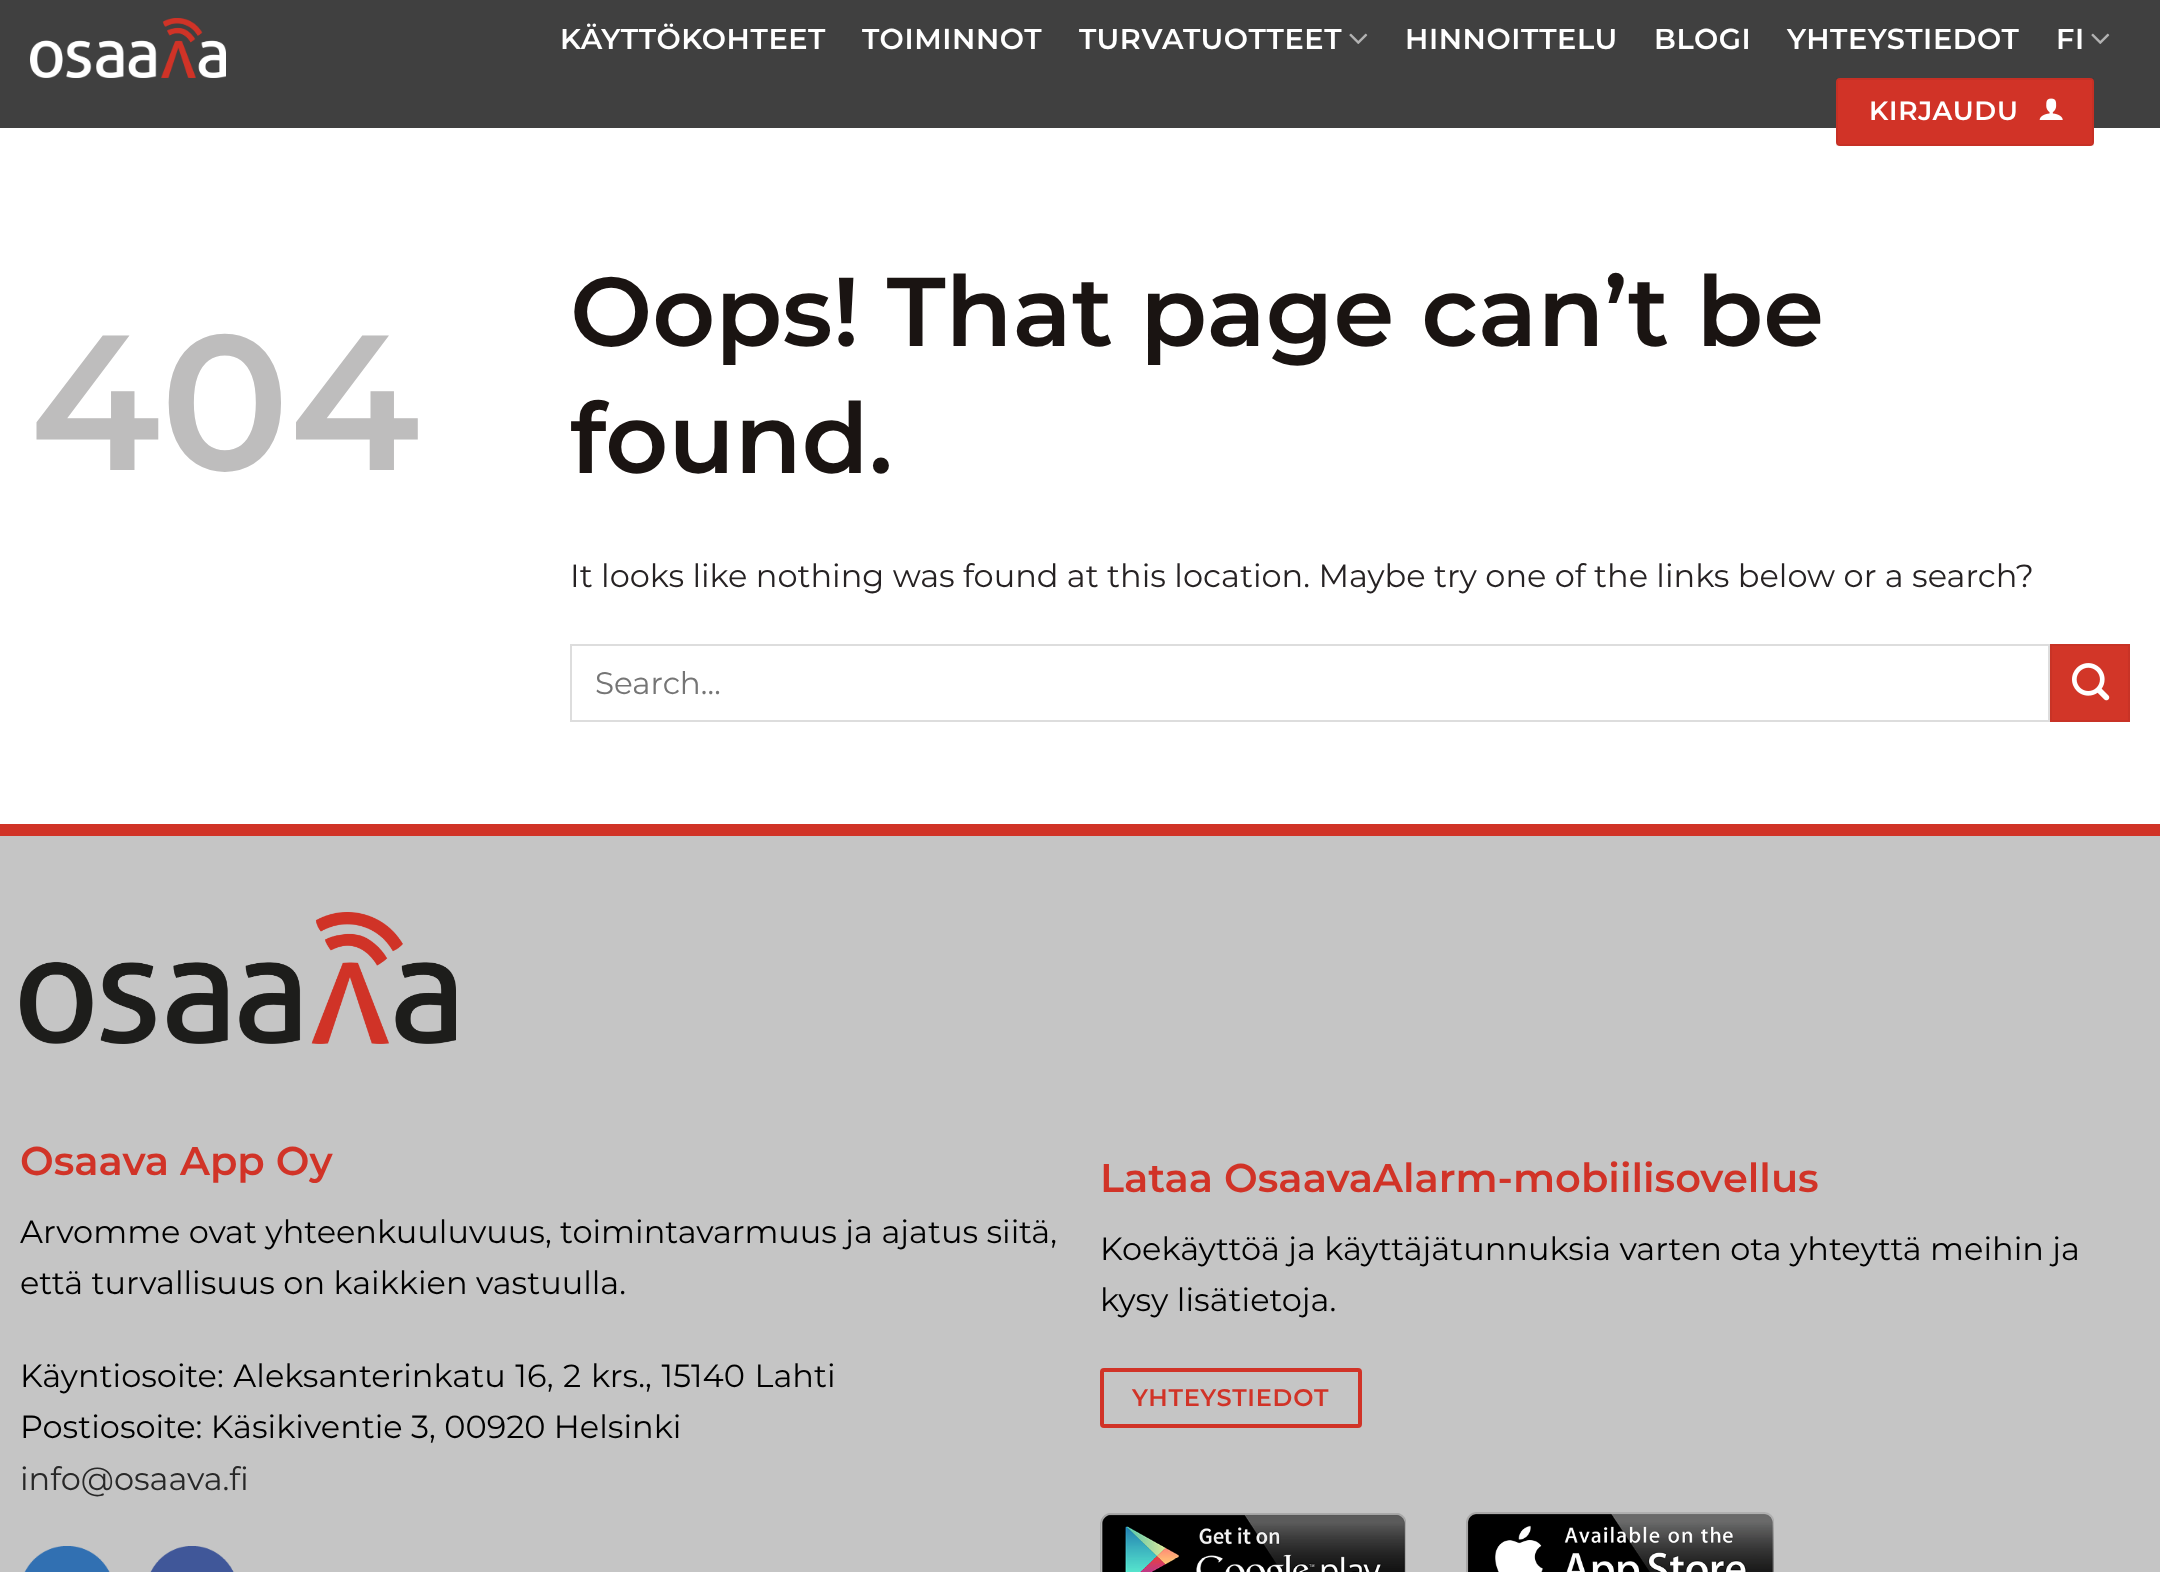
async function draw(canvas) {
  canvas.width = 2160
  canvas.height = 1572
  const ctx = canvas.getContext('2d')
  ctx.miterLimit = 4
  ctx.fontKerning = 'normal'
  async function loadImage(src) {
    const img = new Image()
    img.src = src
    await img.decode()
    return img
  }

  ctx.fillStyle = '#fff'
  ctx.fillRect(0, 0, 2160, 1572)
  ctx.fillStyle = '#404040'
  ctx.fillRect(0, 0, 2160, 128)
  ctx.drawImage(await loadImage('image0.png'), 30, 18, 196, 60)
  ctx.letterSpacing = '0.6px'
  ctx.font = '600 28.75px Montserrat'
  ctx.fillStyle = '#fff'
  ctx.fillText('KÄYTTÖKOHTEET', 560, 49)
  ctx.fillText('TOIMINNOT', 862, 49)
  ctx.fillText('TURVATUOTTEET', 1079, 49)
  ctx.drawImage(await loadImage('image1.png'), 1349, 33, 19, 11)
  ctx.fillText('HINNOITTELU', 1405, 49)
  ctx.fillText('BLOGI', 1654, 49)
  ctx.fillText('YHTEYSTIEDOT', 1787, 49)
  ctx.fillText('FI', 2056, 49)
  ctx.drawImage(await loadImage('image1.png'), 2091, 33, 19, 11)
  ctx.fillStyle = '#d13327'
  ctx.beginPath()
  ctx.roundRect(1836, 78, 258, 68, 4)
  ctx.fill()
  ctx.strokeStyle = '#0000000d'
  ctx.lineWidth = 2
  ctx.strokeRect(1837, 79, 256, 66)
  ctx.letterSpacing = '0.75px'
  ctx.font = '600 26.5px Montserrat'
  ctx.fillStyle = '#fff'
  ctx.fillText('KIRJAUDU', 1869, 120)
  ctx.drawImage(await loadImage('image2.png'), 2039, 98, 24, 22)
  ctx.letterSpacing = '0px'
  ctx.font = '600 192px Montserrat'
  ctx.fillStyle = '#bebdbd'
  ctx.fillText('404', 30, 470)
  ctx.font = '600 97.7px Montserrat'
  ctx.fillStyle = '#1a1412'
  ctx.fillText('Oops! That page can’t be', 570, 346)
  ctx.fillText('found.', 570, 473)
  ctx.font = '32px Montserrat'
  ctx.fillStyle = '#262223'
  ctx.fillText('It looks like nothing was found at this location. Maybe try one of the links below or a search?', 570, 587)
  ctx.strokeStyle = '#ddd'
  ctx.strokeRect(571, 645, 1478, 76)
  ctx.font = '31px Montserrat'
  ctx.fillStyle = '#757575'
  ctx.fillText('Search…', 595, 694)
  ctx.fillStyle = '#d23628'
  ctx.beginPath()
  ctx.rect(2051, 645, 78, 76)
  ctx.fill()
  ctx.strokeStyle = '#c83326'
  ctx.stroke()
  ctx.drawImage(await loadImage('image3.png'), 2072, 663, 38, 38)
  ctx.fillStyle = '#c5c5c5'
  ctx.fillRect(0, 836, 2160, 736)
  ctx.fillStyle = '#d13327'
  ctx.fillRect(0, 824, 2160, 12)
  ctx.drawImage(await loadImage('image4.png'), 20, 912, 436, 132)
  ctx.font = '600 40px Montserrat'
  ctx.fillText('Osaava App Oy', 20, 1175)
  ctx.font = '32px Montserrat'
  ctx.fillStyle = '#000'
  ctx.fillText('Arvomme ovat yhteenkuuluvuus, toimintavarmuus ja ajatus siitä,', 20, 1243)
  ctx.fillText('että turvallisuus on kaikkien vastuulla.', 20, 1294)
  ctx.wordSpacing = '1.25px'
  ctx.fillText('Käyntiosoite: Aleksanterinkatu 16, 2 krs., 15140 Lahti', 20, 1387)
  ctx.wordSpacing = '0px'
  ctx.fillText('Postiosoite: Käsikiventie 3, 00920 Helsinki', 20, 1438)
  ctx.fillStyle = '#282828'
  ctx.fillText('info@osaava.fi', 20, 1490)
  ctx.drawImage(await loadImage('image5.png'), 24, 1546, 86, 26)
  ctx.drawImage(await loadImage('image6.png'), 150, 1546, 84, 26)
  ctx.font = '600 40px Montserrat'
  ctx.fillStyle = '#d13327'
  ctx.fillText('Lataa OsaavaAlarm-mobiilisovellus', 1100, 1192)
  ctx.font = '32px Montserrat'
  ctx.fillStyle = '#000'
  ctx.fillText('Koekäyttöä ja käyttäjätunnuksia varten ota yhteyttä meihin ja', 1100, 1260)
  ctx.fillText('kysy lisätietoja.', 1100, 1311)
  ctx.beginPath()
  ctx.roundRect(1102, 1370, 258, 56, 2)
  ctx.strokeStyle = '#d13327'
  ctx.lineWidth = 4
  ctx.stroke()
  ctx.letterSpacing = '0.75px'
  ctx.font = '600 24px Montserrat'
  ctx.fillStyle = '#d13327'
  ctx.fillText('YHTEYSTIEDOT', 1132, 1406)
  ctx.drawImage(await loadImage('image7.png'), 1100, 1513, 306, 59)
  ctx.drawImage(await loadImage('image8.png'), 1466, 1512, 308, 60)
}

draw(document.querySelector('canvas'))
